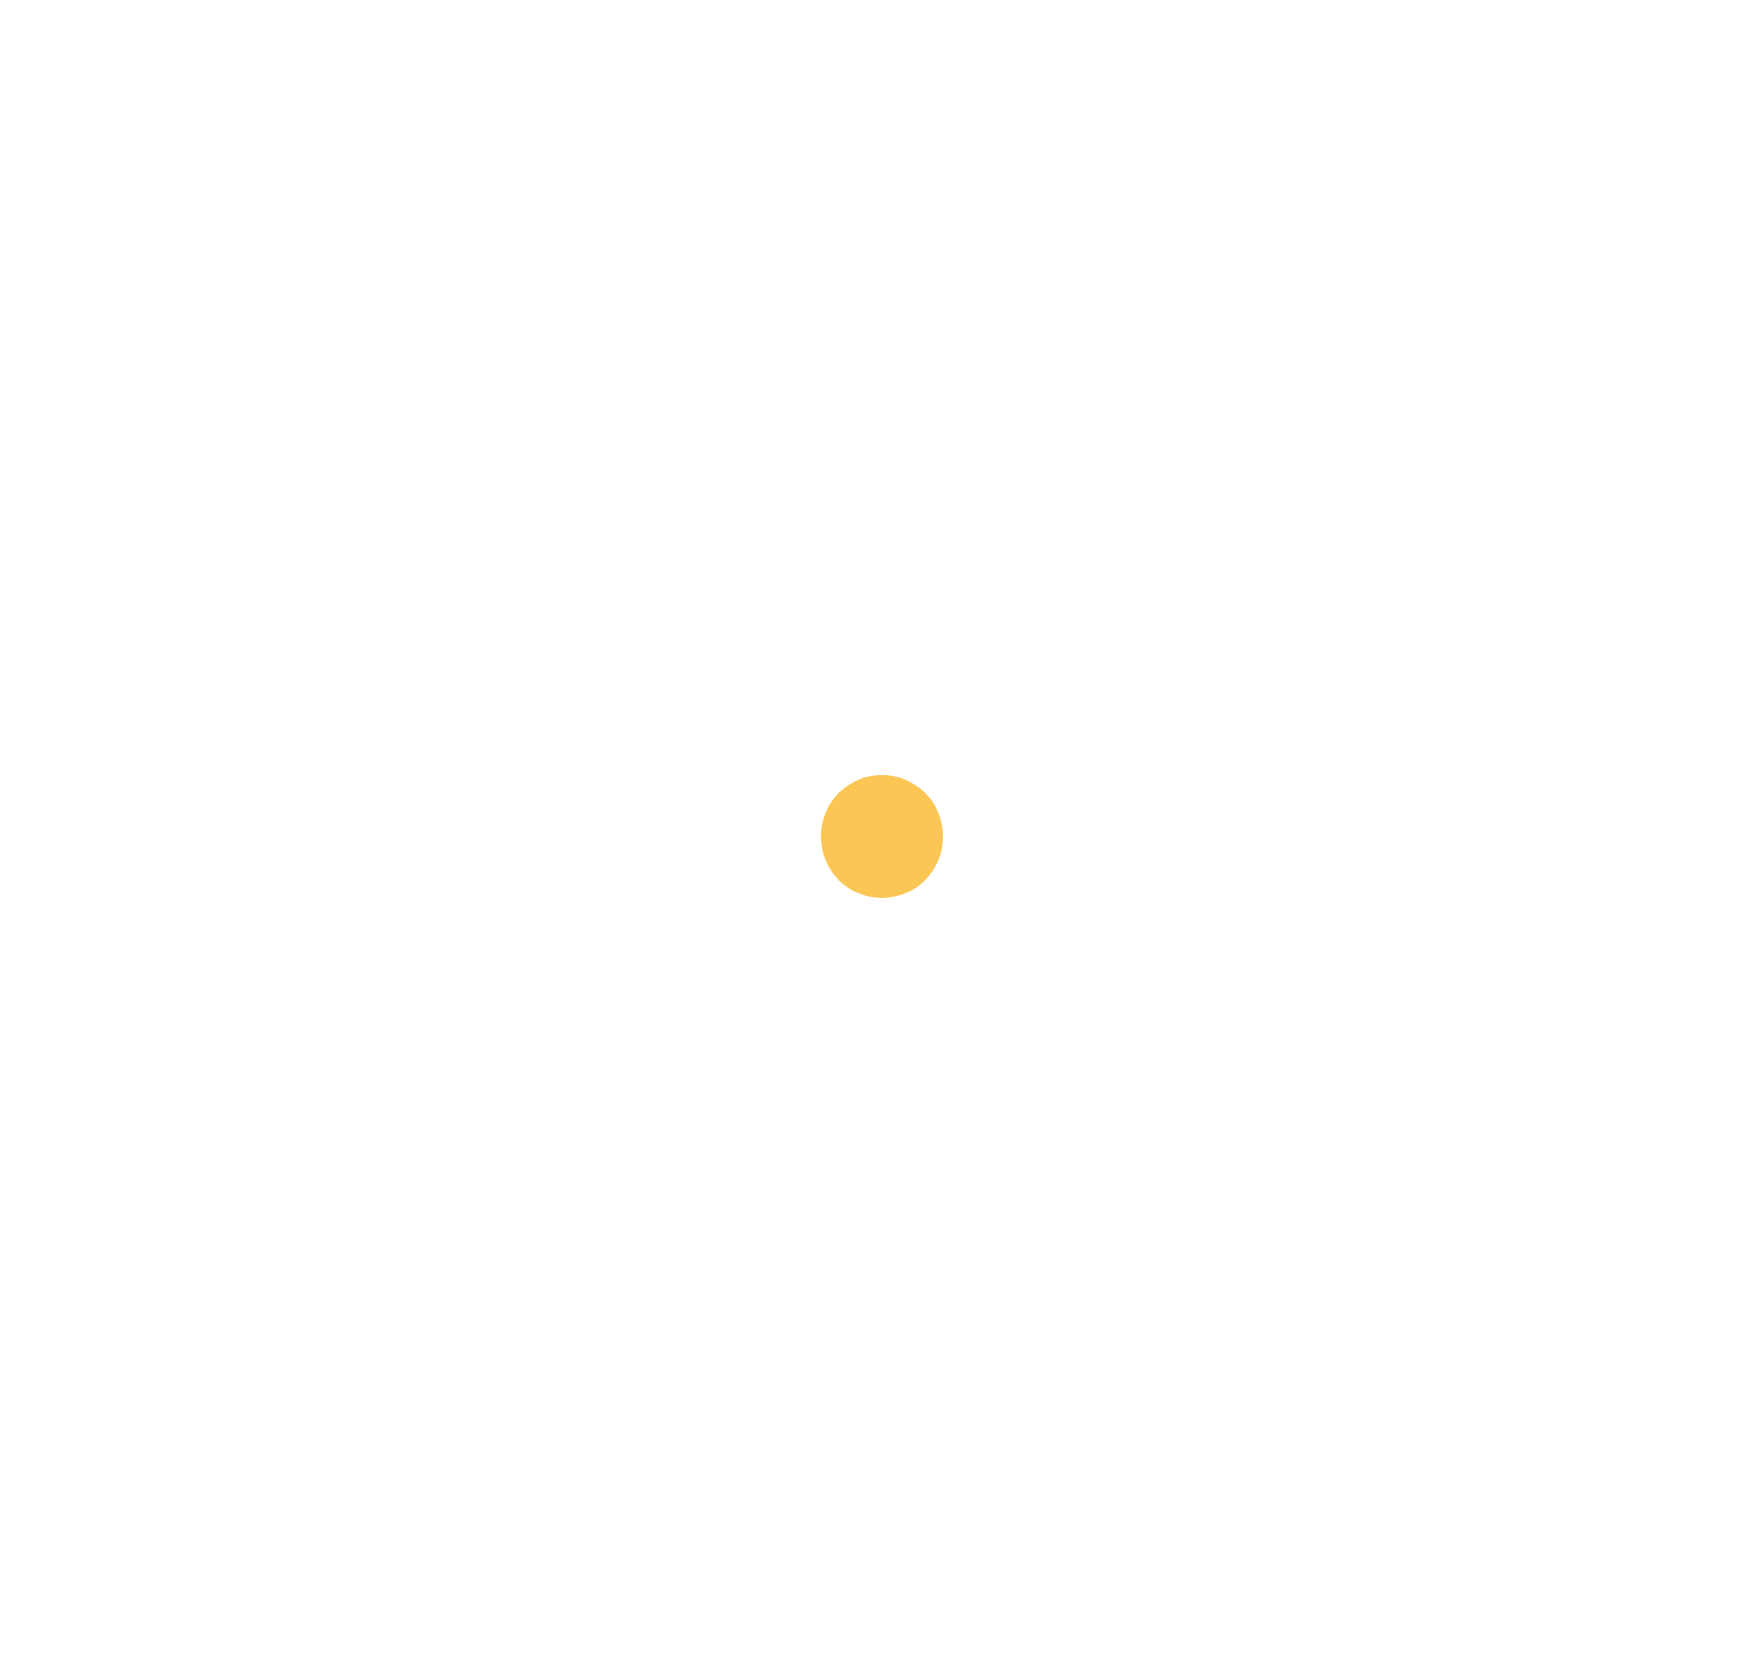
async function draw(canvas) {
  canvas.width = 1762
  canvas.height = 1672
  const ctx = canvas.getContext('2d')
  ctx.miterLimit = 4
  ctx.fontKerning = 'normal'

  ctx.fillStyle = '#fff'
  ctx.fillRect(0, 0, 1762, 1672)
  ctx.fillStyle = '#fbc654'
  ctx.beginPath()
  ctx.roundRect(821, 775, 122, 123, 61)
  ctx.fill()
}

draw(document.querySelector('canvas'))
